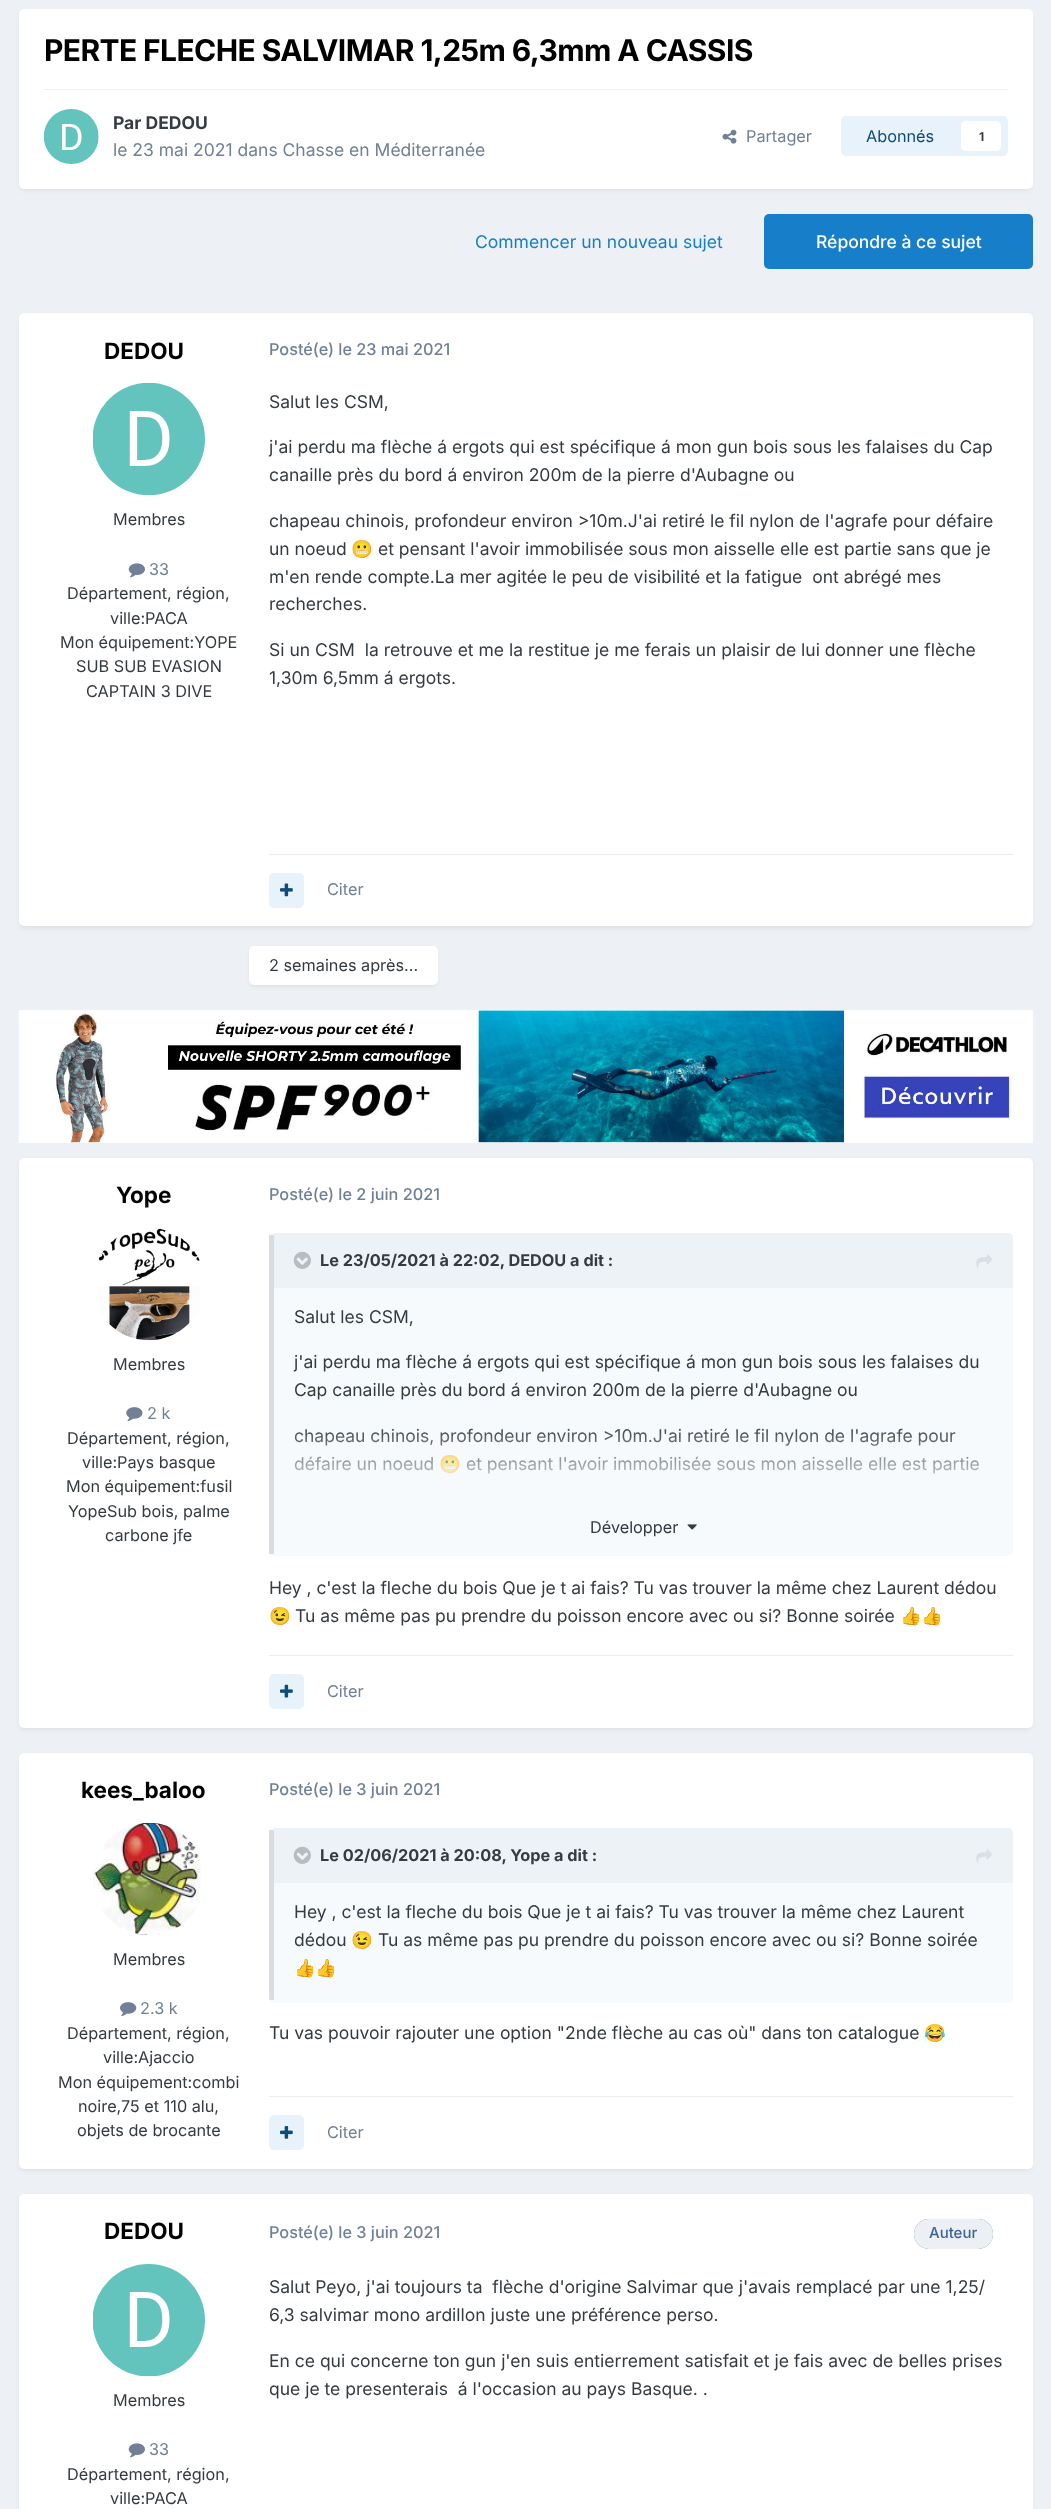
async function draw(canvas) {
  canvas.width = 1051
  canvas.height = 2509
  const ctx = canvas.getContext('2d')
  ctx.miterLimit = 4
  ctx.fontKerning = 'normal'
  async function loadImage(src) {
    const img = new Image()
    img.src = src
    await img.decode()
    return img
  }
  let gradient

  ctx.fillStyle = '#edf0f4'
  ctx.fillRect(0, 0, 1051, 2509)
  ctx.fillStyle = '#2d37481a'
  ctx.filter = 'blur(2.5px)'
  ctx.beginPath()
  ctx.roundRect(20, 13, 1011, 177, 4)
  ctx.fill()
  ctx.filter = 'none'
  ctx.fillStyle = '#fff'
  ctx.beginPath()
  ctx.roundRect(19, 9, 1014, 180, 5)
  ctx.fill()
  ctx.letterSpacing = '-0.6px'
  ctx.font = 'bold 30px Inter'
  ctx.fillStyle = '#000'
  ctx.fillText('PERTE FLECHE SALVIMAR 1,25m 6,3mm A CASSIS', 44, 61)
  ctx.fillStyle = '#efeff0'
  ctx.fillRect(44, 89, 964, 1)
  ctx.drawImage(await loadImage('image0.png'), 44, 109, 55, 55)
  ctx.letterSpacing = '0px'
  ctx.font = 'bold 17.5px Inter'
  ctx.fillStyle = '#353c41'
  ctx.fillText('Par DEDOU', 113, 129)
  ctx.font = '17.5px Inter'
  ctx.fillStyle = '#718096'
  ctx.fillText('le 23 mai 2021 dans Chasse en Méditerranée', 113, 156)
  ctx.drawImage(await loadImage('image1.png'), 722, 129, 15, 15)
  ctx.font = '16.25px Inter'
  ctx.fillText('Partager', 746, 142)
  ctx.fillStyle = '#e8f2fa'
  ctx.beginPath()
  ctx.roundRect(841, 116, 167, 40, 5)
  ctx.fill()
  ctx.fillStyle = '#0e4c79'
  ctx.fillText('Abonnés', 866, 142)
  ctx.fillStyle = '#fff'
  ctx.beginPath()
  ctx.roundRect(961, 121, 40, 30, 5)
  ctx.fill()
  ctx.font = 'bold 12px Inter'
  ctx.fillStyle = '#353c41'
  ctx.fillText('1', 979, 141)
  ctx.font = '17.5px Inter'
  ctx.fillStyle = '#177ec9'
  ctx.fillText('Commencer un nouveau sujet', 475, 248)
  ctx.beginPath()
  ctx.roundRect(764, 214, 269, 55, 5)
  ctx.fill()
  ctx.font = '500 17.5px Inter'
  ctx.fillStyle = '#fff'
  ctx.fillText('Répondre à ce sujet', 816, 248)
  ctx.fillStyle = '#2d37481a'
  ctx.filter = 'blur(2.5px)'
  ctx.beginPath()
  ctx.roundRect(20, 316, 1011, 612, 4)
  ctx.fill()
  ctx.filter = 'none'
  ctx.fillStyle = '#fff'
  ctx.beginPath()
  ctx.roundRect(19, 313, 1014, 613, 5)
  ctx.fill()
  ctx.font = 'bold 22.5px Inter'
  ctx.fillStyle = '#000'
  ctx.fillText('DEDOU', 104, 359)
  ctx.drawImage(await loadImage('image2.png'), 93, 383, 112, 112)
  ctx.font = '16.25px Inter'
  ctx.fillStyle = '#353c41'
  ctx.fillText('Membres', 113, 525)
  ctx.drawImage(await loadImage('image3.png'), 128, 563, 17, 15)
  ctx.fillStyle = '#718096'
  ctx.fillText('33', 149, 575)
  ctx.fillStyle = '#353c41'
  ctx.fillText('Département, région,', 67, 599)
  ctx.fillText('ville:PACA', 110, 624)
  ctx.fillText('Mon équipement:YOPE', 60, 648)
  ctx.fillText('SUB SUB EVASION', 76, 672)
  ctx.fillText('CAPTAIN 3 DIVE', 86, 697)
  ctx.font = '500 16.25px Inter'
  ctx.fillStyle = '#718096'
  ctx.fillText('Posté(e) le 23 mai 2021', 269, 355)
  ctx.font = '17.5px Inter'
  ctx.fillStyle = '#353c41'
  ctx.fillText('Salut les CSM,', 269, 408)
  ctx.fillText('j\'ai perdu ma flèche á ergots qui est spécifique á mon gun bois sous les falaises du Cap', 269, 453)
  ctx.fillText('canaille près du bord á environ 200m de la pierre d\'Aubagne ou', 269, 481)
  ctx.fillText('chapeau chinois, profondeur environ >10m.J\'ai retiré le fil nylon de l\'agrafe pour défaire', 269, 527)
  ctx.fillText('un noeud', 269, 555)
  ctx.font = '17.5px Noto Color Emoji'
  ctx.fillText('😬', 351, 555)
  ctx.font = '17.5px Inter'
  ctx.fillText('et pensant l\'avoir immobilisée sous mon aisselle elle est partie sans que je', 378, 555)
  ctx.fillText('m\'en rende compte.La mer agitée le peu de visibilité et la fatigue  ont abrégé mes', 269, 583)
  ctx.fillText('recherches.', 269, 610)
  ctx.fillText('Si un CSM  la retrouve et me la restitue je me ferais un plaisir de lui donner une flèche', 269, 656)
  ctx.fillText('1,30m 6,5mm á ergots.', 269, 684)
  ctx.fillStyle = '#ebecec'
  ctx.fillRect(269, 854, 744, 1)
  ctx.fillStyle = '#e8f2fa'
  ctx.beginPath()
  ctx.roundRect(269, 873, 35, 35, 5)
  ctx.fill()
  ctx.drawImage(await loadImage('image4.png'), 280, 883, 13, 14)
  ctx.font = '16.25px Inter'
  ctx.fillStyle = '#718096'
  ctx.fillText('Citer', 327, 895)
  ctx.fillStyle = '#2d37481a'
  ctx.filter = 'blur(2.5px)'
  ctx.beginPath()
  ctx.roundRect(250, 950, 186, 36, 4)
  ctx.fill()
  ctx.filter = 'none'
  ctx.fillStyle = '#fff'
  ctx.beginPath()
  ctx.roundRect(249, 946, 189, 39, 5)
  ctx.fill()
  ctx.fillStyle = '#353c41'
  ctx.fillText('2 semaines après...', 269, 971)
  ctx.fillStyle = '#f7fafc'
  ctx.fillRect(19, 1010, 1014, 133)
  ctx.drawImage(await loadImage('image5.png'), 18, 1010, 1015, 133)
  ctx.fillStyle = '#2d37481a'
  ctx.filter = 'blur(2.5px)'
  ctx.beginPath()
  ctx.roundRect(20, 1161, 1011, 568, 4)
  ctx.fill()
  ctx.filter = 'none'
  ctx.fillStyle = '#fff'
  ctx.beginPath()
  ctx.roundRect(19, 1158, 1014, 570, 5)
  ctx.fill()
  ctx.font = 'bold 22.5px Inter'
  ctx.fillStyle = '#000'
  ctx.fillText('Yope', 116, 1203)
  ctx.drawImage(await loadImage('image6.png'), 98, 1228, 102, 113)
  ctx.font = '16.25px Inter'
  ctx.fillStyle = '#353c41'
  ctx.fillText('Membres', 113, 1370)
  ctx.drawImage(await loadImage('image7.png'), 126, 1407, 17, 14)
  ctx.fillStyle = '#718096'
  ctx.fillText('2 k', 147, 1419)
  ctx.fillStyle = '#353c41'
  ctx.fillText('Département, région,', 67, 1444)
  ctx.fillText('ville:Pays basque', 82, 1468)
  ctx.fillText('Mon équipement:fusil', 66, 1492)
  ctx.fillText('YopeSub bois, palme', 68, 1517)
  ctx.fillText('carbone jfe', 105, 1541)
  ctx.font = '500 16.25px Inter'
  ctx.fillStyle = '#718096'
  ctx.fillText('Posté(e) le 2 juin 2021', 269, 1200)
  ctx.fillStyle = '#f7fafc'
  ctx.beginPath()
  ctx.roundRect(269, 1233, 744, 323, 5)
  ctx.fill()
  ctx.fillStyle = '#2d374826'
  ctx.fillRect(269, 1235, 5, 319)
  ctx.fillStyle = '#edf2f7'
  ctx.beginPath()
  ctx.roundRect(274, 1233, 739, 55, [0, 5, 0, 0])
  ctx.fill()
  ctx.drawImage(await loadImage('image8.png'), 293, 1251, 18, 18)
  ctx.font = 'bold 16.25px Inter'
  ctx.fillStyle = '#353c41'
  ctx.fillText('Le 23/05/2021 à 22:02, DEDOU a dit :', 320, 1266)
  ctx.drawImage(await loadImage('image9.png'), 976, 1254, 17, 15)
  ctx.font = '17.5px Inter'
  ctx.fillText('Salut les CSM,', 294, 1323)
  ctx.fillText('j\'ai perdu ma flèche á ergots qui est spécifique á mon gun bois sous les falaises du', 294, 1368)
  ctx.fillText('Cap canaille près du bord á environ 200m de la pierre d\'Aubagne ou', 294, 1396)
  ctx.fillText('chapeau chinois, profondeur environ >10m.J\'ai retiré le fil nylon de l\'agrafe pour', 294, 1442)
  ctx.fillText('défaire un noeud', 294, 1470)
  ctx.font = '17.5px Noto Color Emoji'
  ctx.fillText('😬', 439, 1470)
  ctx.font = '17.5px Inter'
  ctx.fillText('et pensant l\'avoir immobilisée sous mon aisselle elle est partie', 466, 1470)
  gradient = ctx.createLinearGradient(643, 1424, 643, 1499)
  gradient.addColorStop(0, '#f7fafc03')
  gradient.addColorStop(1, '#f7fafcfc')
  ctx.fillStyle = gradient
  ctx.fillRect(294, 1428, 685, 46)
  ctx.font = '16.25px Inter'
  ctx.fillStyle = '#353c41'
  ctx.fillText('Développer', 590, 1533)
  ctx.drawImage(await loadImage('image10.png'), 687, 1524, 10, 6)
  ctx.font = '17.5px Inter'
  ctx.fillText('Hey , c\'est la fleche du bois Que je t ai fais? Tu vas trouver la même chez Laurent dédou', 269, 1594)
  ctx.font = '17.5px Noto Color Emoji'
  ctx.fillText('😉', 269, 1622)
  ctx.font = '17.5px Inter'
  ctx.fillText('Tu as même pas pu prendre du poisson encore avec ou si? Bonne soirée', 295, 1622)
  ctx.font = '17.5px Noto Color Emoji'
  ctx.fillText('👍👍', 900, 1622)
  ctx.fillStyle = '#ebecec'
  ctx.fillRect(269, 1655, 744, 1)
  ctx.fillStyle = '#e8f2fa'
  ctx.beginPath()
  ctx.roundRect(269, 1674, 35, 35, 5)
  ctx.fill()
  ctx.drawImage(await loadImage('image11.png'), 280, 1684, 13, 14)
  ctx.font = '16.25px Inter'
  ctx.fillStyle = '#718096'
  ctx.fillText('Citer', 327, 1697)
  ctx.fillStyle = '#2d37481a'
  ctx.filter = 'blur(2.5px)'
  ctx.beginPath()
  ctx.roundRect(20, 1756, 1011, 414, 4)
  ctx.fill()
  ctx.filter = 'none'
  ctx.fillStyle = '#fff'
  ctx.beginPath()
  ctx.roundRect(19, 1753, 1014, 416, 5)
  ctx.fill()
  ctx.font = 'bold 22.5px Inter'
  ctx.fillStyle = '#000'
  ctx.fillText('kees_baloo', 81, 1798)
  ctx.drawImage(await loadImage('image12.png'), 93, 1822, 108, 113)
  ctx.font = '16.25px Inter'
  ctx.fillStyle = '#353c41'
  ctx.fillText('Membres', 113, 1965)
  ctx.drawImage(await loadImage('image13.png'), 120, 2002, 17, 14)
  ctx.fillStyle = '#718096'
  ctx.fillText('2.3 k', 140, 2014)
  ctx.fillStyle = '#353c41'
  ctx.fillText('Département, région,', 67, 2039)
  ctx.fillText('ville:Ajaccio', 103, 2063)
  ctx.fillText('Mon équipement:combi', 58, 2088)
  ctx.fillText('noire,75 et 110 alu,', 78, 2112)
  ctx.fillText('objets de brocante', 77, 2136)
  ctx.font = '500 16.25px Inter'
  ctx.fillStyle = '#718096'
  ctx.fillText('Posté(e) le 3 juin 2021', 269, 1795)
  ctx.fillStyle = '#f7fafc'
  ctx.beginPath()
  ctx.roundRect(269, 1828, 744, 175, 5)
  ctx.fill()
  ctx.fillStyle = '#2d374826'
  ctx.fillRect(269, 1830, 5, 170)
  ctx.fillStyle = '#edf2f7'
  ctx.beginPath()
  ctx.roundRect(274, 1828, 739, 55, [0, 5, 0, 0])
  ctx.fill()
  ctx.drawImage(await loadImage('image8.png'), 293, 1846, 18, 18)
  ctx.font = 'bold 16.25px Inter'
  ctx.fillStyle = '#353c41'
  ctx.fillText('Le 02/06/2021 à 20:08, Yope a dit :', 320, 1861)
  ctx.drawImage(await loadImage('image9.png'), 976, 1849, 17, 15)
  ctx.font = '17.5px Inter'
  ctx.fillText('Hey , c\'est la fleche du bois Que je t ai fais? Tu vas trouver la même chez Laurent', 294, 1918)
  ctx.fillText('dédou', 294, 1946)
  ctx.font = '17.5px Noto Color Emoji'
  ctx.fillText('😉', 351, 1946)
  ctx.font = '17.5px Inter'
  ctx.fillText('Tu as même pas pu prendre du poisson encore avec ou si? Bonne soirée', 378, 1946)
  ctx.font = '17.5px Noto Color Emoji'
  ctx.fillText('👍👍', 294, 1974)
  ctx.font = '17.5px Inter'
  ctx.fillText('Tu vas pouvoir rajouter une option "2nde flèche au cas où" dans ton catalogue', 269, 2039)
  ctx.font = '17.5px Noto Color Emoji'
  ctx.fillText('😂', 924, 2039)
  ctx.fillStyle = '#ebecec'
  ctx.fillRect(269, 2096, 744, 1)
  ctx.fillStyle = '#e8f2fa'
  ctx.beginPath()
  ctx.roundRect(269, 2115, 35, 35, 5)
  ctx.fill()
  ctx.drawImage(await loadImage('image14.png'), 280, 2126, 13, 13)
  ctx.font = '16.25px Inter'
  ctx.fillStyle = '#718096'
  ctx.fillText('Citer', 327, 2138)
  ctx.fillStyle = '#2d37481a'
  ctx.filter = 'blur(2.5px)'
  ctx.beginPath()
  ctx.roundRect(20, 2198, 1011, 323, 4)
  ctx.fill()
  ctx.filter = 'none'
  ctx.fillStyle = '#fff'
  ctx.beginPath()
  ctx.roundRect(19, 2194, 1014, 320, 5)
  ctx.fill()
  ctx.font = 'bold 22.5px Inter'
  ctx.fillStyle = '#000'
  ctx.fillText('DEDOU', 104, 2239)
  ctx.drawImage(await loadImage('image15.png'), 93, 2264, 112, 113)
  ctx.font = '16.25px Inter'
  ctx.fillStyle = '#353c41'
  ctx.fillText('Membres', 113, 2406)
  ctx.drawImage(await loadImage('image3.png'), 128, 2443, 17, 15)
  ctx.fillStyle = '#718096'
  ctx.fillText('33', 149, 2455)
  ctx.fillStyle = '#353c41'
  ctx.fillText('Département, région,', 67, 2480)
  ctx.fillText('ville:PACA', 110, 2504)
  ctx.font = '500 16.25px Inter'
  ctx.fillStyle = '#718096'
  ctx.fillText('Posté(e) le 3 juin 2021', 269, 2238)
  ctx.fillStyle = '#3d6594'
  ctx.beginPath()
  ctx.roundRect(914, 2219, 79, 30, 15)
  ctx.fill()
  ctx.fillStyle = '#ffffffe6'
  ctx.beginPath()
  ctx.roundRect(914, 2219, 79, 30, 15)
  ctx.fill()
  ctx.font = '500 15px Inter'
  ctx.fillStyle = '#3d6594'
  ctx.fillText('Auteur', 929, 2238)
  ctx.font = '17.5px Inter'
  ctx.fillStyle = '#353c41'
  ctx.fillText('Salut Peyo, j\'ai toujours ta  flèche d\'origine Salvimar que j\'avais remplacé par une 1,25/', 269, 2293)
  ctx.fillText('6,3 salvimar mono ardillon juste une préférence perso.', 269, 2321)
  ctx.fillText('En ce qui concerne ton gun j\'en suis entierrement satisfait et je fais avec de belles prises', 269, 2367)
  ctx.fillText('que je te presenterais  á l\'occasion au pays Basque. .', 269, 2395)
}

draw(document.querySelector('canvas'))
